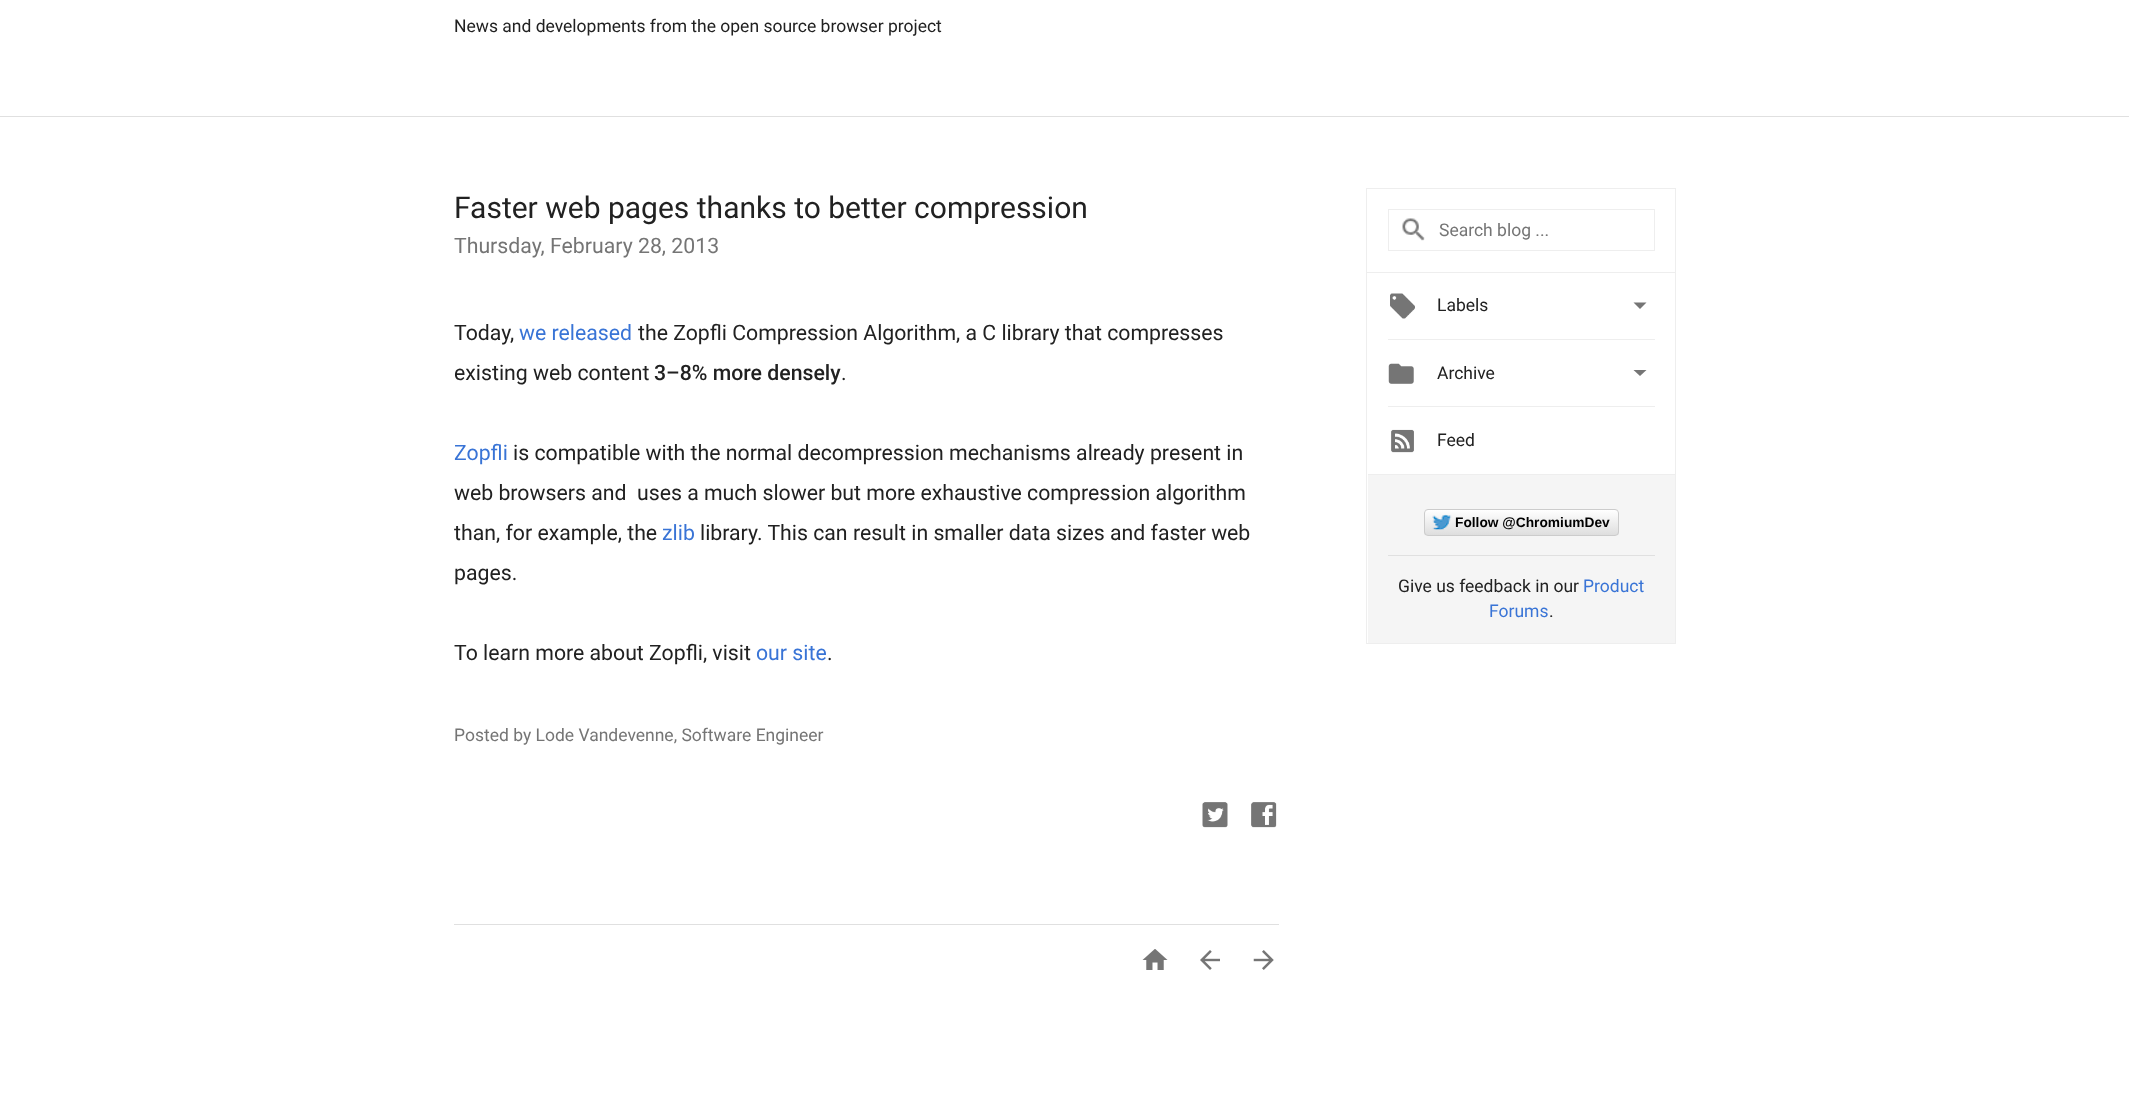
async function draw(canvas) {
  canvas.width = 2129
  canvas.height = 1107
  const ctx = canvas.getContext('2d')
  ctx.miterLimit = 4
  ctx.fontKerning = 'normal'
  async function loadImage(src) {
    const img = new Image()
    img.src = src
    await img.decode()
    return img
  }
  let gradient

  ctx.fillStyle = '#fff'
  ctx.fillRect(0, 0, 2129, 1107)
  ctx.fillStyle = '#e0e0e0'
  ctx.fillRect(0, 116, 2129, 1)
  ctx.font = '17.5px Roboto'
  ctx.fillStyle = '#212121'
  ctx.fillText('News and developments from the open source browser project', 454, 32)
  ctx.font = '30px Roboto'
  ctx.fillText('Faster web pages thanks to better compression', 454, 218)
  ctx.font = '21.25px Roboto'
  ctx.fillStyle = '#757575'
  ctx.fillText('Thursday, February 28, 2013', 454, 253)
  ctx.fillStyle = '#212121'
  ctx.fillText('Today,', 454, 340)
  ctx.fillStyle = '#3974d6'
  ctx.fillText('we released', 519, 340)
  ctx.fillStyle = '#212121'
  ctx.fillText('the Zopfli Compression Algorithm, a C library that compresses', 638, 340)
  ctx.fillText('existing web content', 454, 380)
  ctx.font = '500 21.25px Roboto'
  ctx.fillText('3–8% more densely', 654, 380)
  ctx.font = '21.25px Roboto'
  ctx.fillText('.', 841, 380)
  ctx.fillStyle = '#3974d6'
  ctx.fillText('Zopfli', 454, 460)
  ctx.fillStyle = '#212121'
  ctx.fillText('is compatible with the normal decompression mechanisms already present in', 513, 460)
  ctx.fillText('web browsers and  uses a much slower but more exhaustive compression algorithm', 454, 500)
  ctx.fillText('than, for example, the', 454, 540)
  ctx.fillStyle = '#3974d6'
  ctx.fillText('zlib', 662, 540)
  ctx.fillStyle = '#212121'
  ctx.fillText('library. This can result in smaller data sizes and faster web', 700, 540)
  ctx.fillText('pages.', 454, 580)
  ctx.fillText('To learn more about Zopfli, visit', 454, 660)
  ctx.fillStyle = '#3974d6'
  ctx.fillText('our site', 756, 660)
  ctx.fillStyle = '#212121'
  ctx.fillText('.', 827, 660)
  ctx.font = '17.5px Roboto'
  ctx.fillStyle = '#757575'
  ctx.fillText('Posted by Lode Vandevenne, Software Engineer', 454, 741)
  ctx.drawImage(await loadImage('image0.png'), 1202, 802, 26, 26)
  ctx.drawImage(await loadImage('image1.png'), 1251, 802, 26, 26)
  ctx.fillStyle = '#e0e0e0'
  ctx.fillRect(454, 924, 825, 1)
  ctx.drawImage(await loadImage('image2.png'), 1142, 949, 26, 21)
  ctx.drawImage(await loadImage('image3.png'), 1200, 950, 20, 20)
  ctx.drawImage(await loadImage('image4.png'), 1253, 950, 21, 20)
  ctx.strokeStyle = '#eee'
  ctx.strokeRect(1366.5, 188.5, 309, 84)
  ctx.drawImage(await loadImage('image5.png'), 1402, 218, 23, 23)
  ctx.strokeRect(1388.5, 209.5, 266, 41)
  ctx.fillStyle = '#757575'
  ctx.fillText('Search blog ...', 1439, 236)
  ctx.fillStyle = '#eee'
  ctx.fillRect(1675, 273, 1, 371)
  ctx.fillRect(1366, 643, 310, 1)
  ctx.fillRect(1366, 273, 1, 371)
  ctx.fillRect(1388, 339, 267, 1)
  ctx.drawImage(await loadImage('image6.png'), 1390, 293, 25, 26)
  ctx.fillStyle = '#212121'
  ctx.fillText('Labels', 1437, 311)
  ctx.fillStyle = '#757575'
  ctx.beginPath()
  ctx.moveTo(1633.5, 302.5)
  ctx.lineTo(1646.5, 302.5)
  ctx.lineTo(1640, 309)
  ctx.closePath()
  ctx.fill()
  ctx.fillStyle = '#eee'
  ctx.fillRect(1388, 406, 267, 1)
  ctx.drawImage(await loadImage('image7.png'), 1388, 363, 26, 21)
  ctx.fillStyle = '#212121'
  ctx.fillText('Archive', 1437, 379)
  ctx.fillStyle = '#757575'
  ctx.beginPath()
  ctx.moveTo(1633.5, 370)
  ctx.lineTo(1646.5, 370)
  ctx.lineTo(1640, 376)
  ctx.closePath()
  ctx.fill()
  ctx.drawImage(await loadImage('image8.png'), 1391, 429, 23, 24)
  ctx.fillStyle = '#212121'
  ctx.fillText('Feed', 1437, 446)
  ctx.fillStyle = '#f5f5f5'
  ctx.fillRect(1368, 475, 307, 168)
  ctx.fillStyle = '#eee'
  ctx.fillRect(1368, 474, 307, 1)
  ctx.fillStyle = '#e0e0e0'
  ctx.fillRect(1388, 555, 267, 1)
  ctx.save()
  ctx.beginPath()
  ctx.roundRect(1424, 509, 195, 27, 4)
  ctx.clip()
  gradient = ctx.createLinearGradient(1521, 510, 1521, 535)
  gradient.addColorStop(0, '#fff')
  gradient.addColorStop(1, '#dedede')
  ctx.fillStyle = gradient
  ctx.fillRect(1424, 510, 195, 25)
  ctx.restore()
  ctx.beginPath()
  ctx.roundRect(1424.5, 509.5, 194, 26, 3.5)
  ctx.strokeStyle = '#ccc'
  ctx.stroke()
  ctx.drawImage(await loadImage('image9.png'), 1432, 514, 20, 16)
  ctx.font = 'bold 13.75px Liberation Sans'
  ctx.fillStyle = '#000'
  ctx.fillText('Follow @ChromiumDev', 1455, 527)
  ctx.font = '17.5px Roboto'
  ctx.fillStyle = '#212121'
  ctx.fillText('Give us feedback in our', 1398, 592)
  ctx.fillStyle = '#3974d6'
  ctx.fillText('Product', 1583, 592)
  ctx.fillText('Forums', 1489, 617)
  ctx.fillStyle = '#212121'
  ctx.fillText('.', 1549, 617)
}

draw(document.querySelector('canvas'))
